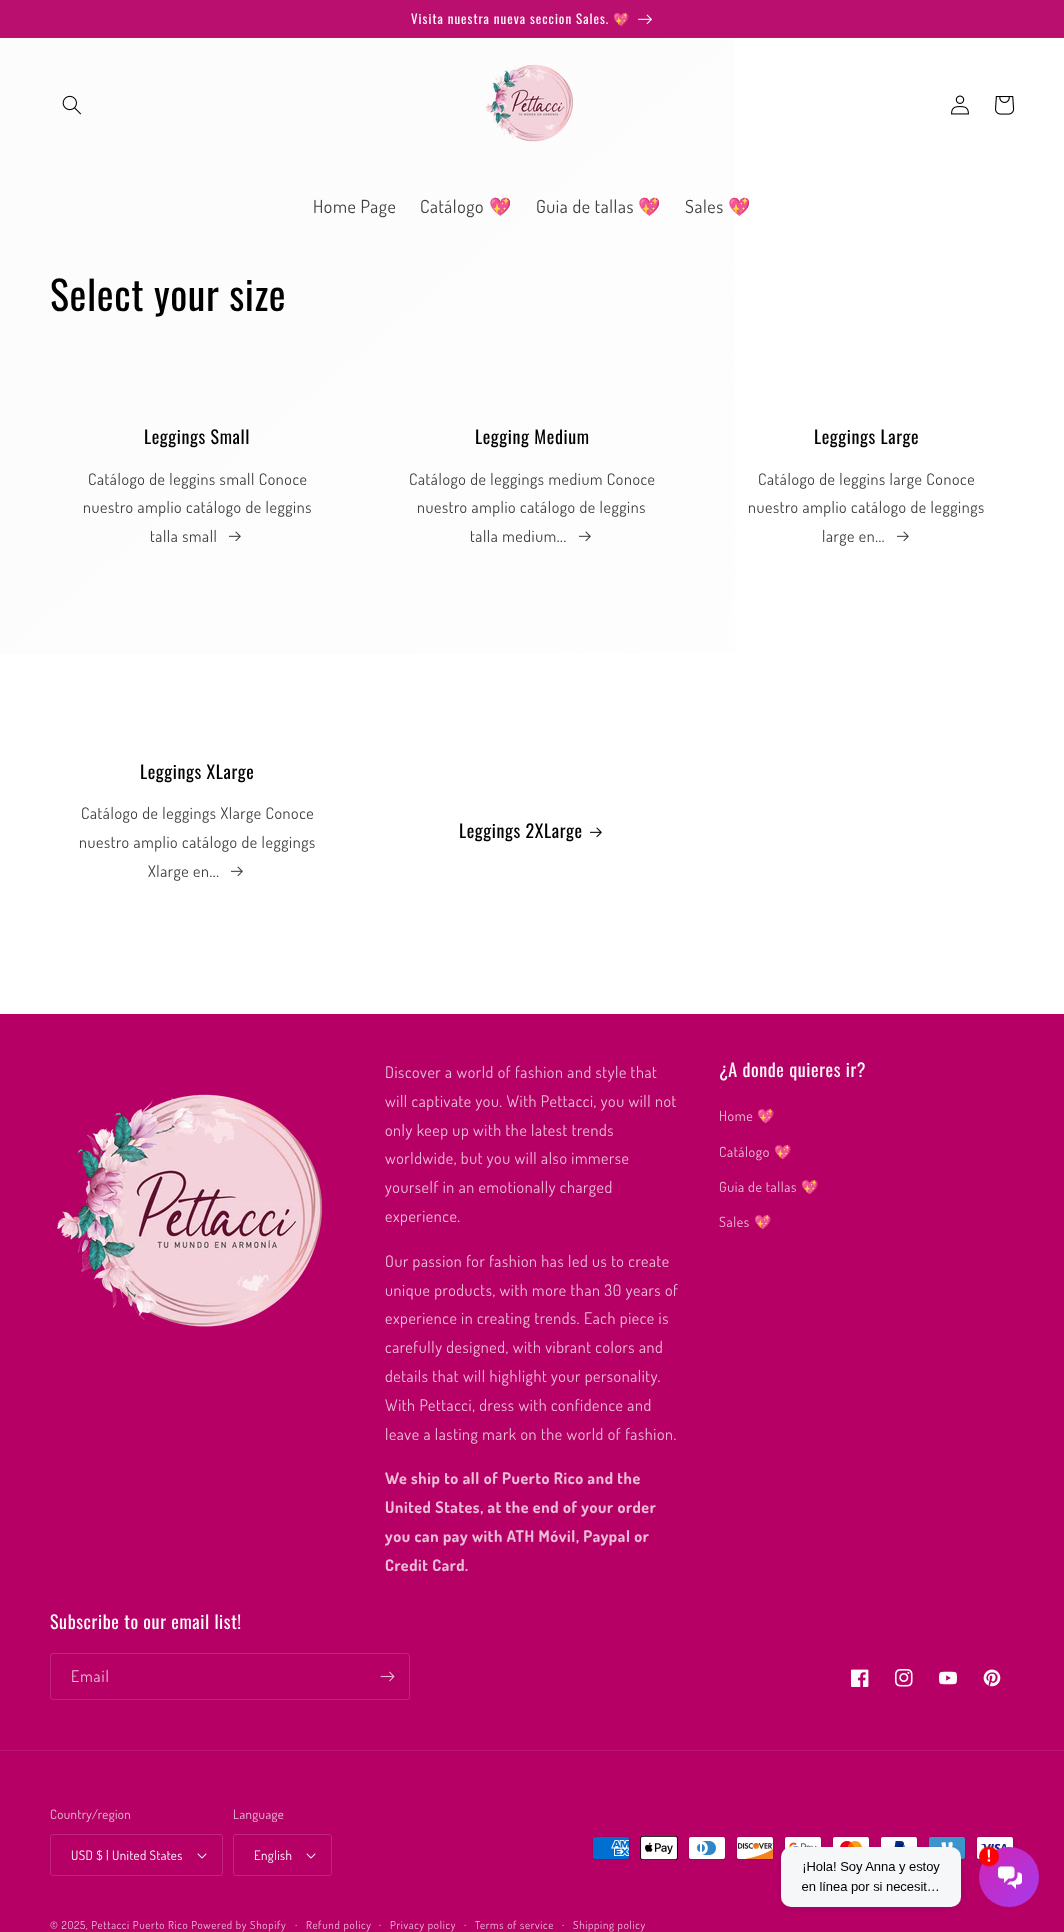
async function draw(canvas) {
  canvas.width = 1064
  canvas.height = 1932
  const ctx = canvas.getContext('2d')
  ctx.miterLimit = 4
  ctx.fontKerning = 'normal'
  async function loadImage(src) {
    const img = new Image()
    img.src = src
    await img.decode()
    return img
  }
  let gradient

  ctx.fillStyle = '#fff'
  ctx.fillRect(0, 0, 1064, 1932)
  gradient = ctx.createLinearGradient(-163, 137, 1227, 1795)
  gradient.addColorStop(0.11, '#fcfcfc')
  gradient.addColorStop(0.84, '#fff')
  ctx.fillStyle = gradient
  ctx.fillRect(0, 38, 735, 616)
  ctx.fillStyle = '#bc1472'
  ctx.fillRect(0, 37, 1064, 1)
  ctx.fillStyle = '#ba0f6f'
  ctx.fillRect(0, 0, 1064, 37)
  ctx.letterSpacing = '1px'
  ctx.font = '13px Oswald'
  ctx.fillStyle = '#fcfcfc'
  ctx.fillText('Visita nuestra nueva seccion Sales.', 411, 24)
  ctx.font = '13px Noto Color Emoji'
  ctx.fillText('💖', 613, 24)
  ctx.drawImage(await loadImage('image0.png'), 638, 14, 14, 11)
  ctx.drawImage(await loadImage('image1.png'), 62, 95, 19, 20)
  ctx.drawImage(await loadImage('image2.png'), 485, 64, 88, 78)
  ctx.drawImage(await loadImage('image3.png'), 951, 95, 18, 20)
  ctx.drawImage(await loadImage('image4.png'), 995, 96, 20, 19)
  ctx.letterSpacing = '0.6px'
  ctx.font = '18px Dosis'
  ctx.fillStyle = '#3f3f3f'
  ctx.fillText('Home Page', 313, 213)
  ctx.fillText('Catálogo', 420, 213)
  ctx.font = '18px Noto Color Emoji'
  ctx.fillText('💖', 489, 213)
  ctx.font = '18px Dosis'
  ctx.fillText('Guia de tallas', 536, 213)
  ctx.font = '18px Noto Color Emoji'
  ctx.fillText('💖', 638, 213)
  ctx.font = '18px Dosis'
  ctx.fillText('Sales', 685, 213)
  ctx.font = '18px Noto Color Emoji'
  ctx.fillText('💖', 728, 213)
  ctx.font = '40px Oswald'
  ctx.fillStyle = '#000'
  ctx.fillText('Select your size', 50, 311)
  ctx.font = '18px Oswald'
  ctx.fillText('Leggings Small', 144, 444)
  ctx.font = '16px Dosis'
  ctx.fillStyle = '#3f3f3f'
  ctx.fillText('Catálogo de leggins small Conoce', 88, 485)
  ctx.fillText('nuestro amplio catálogo de leggins', 83, 513)
  ctx.fillText('talla small', 150, 542)
  ctx.drawImage(await loadImage('image5.png'), 229, 531, 12, 11)
  ctx.font = '18px Oswald'
  ctx.fillStyle = '#000'
  ctx.fillText('Legging Medium', 475, 444)
  ctx.font = '16px Dosis'
  ctx.fillStyle = '#3f3f3f'
  ctx.fillText('Catálogo de leggings medium Conoce', 409, 485)
  ctx.fillText('nuestro amplio catálogo de leggins', 417, 513)
  ctx.fillText('talla medium...', 470, 542)
  ctx.drawImage(await loadImage('image5.png'), 579, 531, 12, 11)
  ctx.font = '18px Oswald'
  ctx.fillStyle = '#000'
  ctx.fillText('Leggings Large', 814, 444)
  ctx.font = '16px Dosis'
  ctx.fillStyle = '#3f3f3f'
  ctx.fillText('Catálogo de leggins large Conoce', 758, 485)
  ctx.fillText('nuestro amplio catálogo de leggings', 748, 513)
  ctx.fillText('large en...', 822, 542)
  ctx.drawImage(await loadImage('image5.png'), 897, 531, 12, 11)
  ctx.font = '18px Oswald'
  ctx.fillStyle = '#000'
  ctx.fillText('Leggings XLarge', 140, 779)
  ctx.font = '16px Dosis'
  ctx.fillStyle = '#3f3f3f'
  ctx.fillText('Catálogo de leggings Xlarge Conoce', 81, 819)
  ctx.fillText('nuestro amplio catálogo de leggings', 79, 848)
  ctx.fillText('Xlarge en...', 148, 877)
  ctx.drawImage(await loadImage('image5.png'), 231, 866, 12, 11)
  ctx.font = '18px Oswald'
  ctx.fillStyle = '#000'
  ctx.fillText('Leggings 2XLarge', 459, 838)
  ctx.drawImage(await loadImage('image6.png'), 590, 827, 12, 11)
  ctx.fillStyle = '#b60066'
  ctx.fillRect(0, 1014, 1064, 918)
  ctx.drawImage(await loadImage('image7.png'), 57, 1094, 266, 233)
  ctx.font = '16px Dosis'
  ctx.fillStyle = '#ebbdd7'
  ctx.fillText('Discover a world of fashion and style that', 385, 1078)
  ctx.fillText('will captivate you. With Pettacci, you will not', 385, 1107)
  ctx.fillText('only keep up with the latest trends', 385, 1136)
  ctx.fillText('worldwide, but you will also immerse', 385, 1164)
  ctx.fillText('yourself in an emotionally charged', 385, 1193)
  ctx.fillText('experience.', 385, 1222)
  ctx.fillText('Our passion for fashion has led us to create', 385, 1267)
  ctx.fillText('unique products, with more than 30 years of', 385, 1296)
  ctx.fillText('experience in creating trends. Each piece is', 385, 1324)
  ctx.fillText('carefully designed, with vibrant colors and', 385, 1353)
  ctx.fillText('details that will highlight your personality.', 385, 1382)
  ctx.fillText('With Pettacci, dress with confidence and', 385, 1411)
  ctx.fillText('leave a lasting mark on the world of fashion.', 385, 1440)
  ctx.font = 'bold 16px Dosis'
  ctx.fillText('We ship to all of Puerto Rico and the', 385, 1484)
  ctx.fillText('United States, at the end of your order', 385, 1513)
  ctx.fillText('you can pay with ATH Móvil, Paypal or', 385, 1542)
  ctx.fillText('Credit Card.', 385, 1571)
  ctx.font = '18px Oswald'
  ctx.fillStyle = '#fcfcfc'
  ctx.fillText('¿A donde quieres ir?', 719, 1077)
  ctx.font = '14px Dosis'
  ctx.fillStyle = '#ebbdd7'
  ctx.fillText('Home', 719, 1121)
  ctx.font = '14px Noto Color Emoji'
  ctx.fillText('💖', 757, 1121)
  ctx.font = '14px Dosis'
  ctx.fillText('Catálogo', 719, 1157)
  ctx.font = '14px Noto Color Emoji'
  ctx.fillText('💖', 774, 1157)
  ctx.font = '14px Dosis'
  ctx.fillText('Guia de tallas', 719, 1192)
  ctx.font = '14px Noto Color Emoji'
  ctx.fillText('💖', 801, 1192)
  ctx.font = '14px Dosis'
  ctx.fillText('Sales', 719, 1227)
  ctx.font = '14px Noto Color Emoji'
  ctx.fillText('💖', 754, 1227)
  ctx.font = '18px Oswald'
  ctx.fillStyle = '#fcfcfc'
  ctx.fillText('Subscribe to our email list!', 50, 1629)
  ctx.beginPath()
  ctx.roundRect(50.5, 1653.5, 359, 46, 2.5)
  ctx.strokeStyle = '#fcfcfc26'
  ctx.stroke()
  ctx.letterSpacing = '1px'
  ctx.font = '16px Dosis'
  ctx.fillStyle = '#ebbdd7'
  ctx.fillText('Email', 71, 1682)
  ctx.drawImage(await loadImage('image8.png'), 380, 1671, 15, 11)
  ctx.drawImage(await loadImage('image9.png'), 851, 1669, 18, 18)
  ctx.drawImage(await loadImage('image10.png'), 895, 1669, 18, 18)
  ctx.drawImage(await loadImage('image11.png'), 939, 1671, 18, 14)
  ctx.drawImage(await loadImage('image12.png'), 983, 1669, 18, 18)
  ctx.fillStyle = '#bc1472'
  ctx.fillRect(0, 1750, 1064, 1)
  ctx.letterSpacing = '0.4px'
  ctx.font = '13px Dosis'
  ctx.fillStyle = '#ebbdd7'
  ctx.fillText('Country/region', 50, 1819)
  ctx.drawImage(await loadImage('image13.png'), 197, 1853, 10, 6)
  ctx.beginPath()
  ctx.roundRect(50.5, 1834.5, 172, 41, 2.5)
  ctx.strokeStyle = '#c0267c'
  ctx.stroke()
  ctx.fillStyle = '#fcfcfc'
  ctx.fillText('USD $ | United States', 71, 1860)
  ctx.fillStyle = '#ebbdd7'
  ctx.fillText('Language', 233, 1819)
  ctx.drawImage(await loadImage('image13.png'), 306, 1853, 10, 6)
  ctx.beginPath()
  ctx.roundRect(233.5, 1834.5, 98, 41, 2.5)
  ctx.stroke()
  ctx.fillStyle = '#fcfcfc'
  ctx.fillText('English', 254, 1860)
  ctx.drawImage(await loadImage('image14.png'), 592, 1836, 38, 24)
  ctx.drawImage(await loadImage('image15.png'), 640, 1836, 38, 24)
  ctx.drawImage(await loadImage('image16.png'), 688, 1836, 38, 24)
  ctx.drawImage(await loadImage('image17.png'), 736, 1836, 38, 24)
  ctx.drawImage(await loadImage('image18.png'), 784, 1836, 38, 14)
  ctx.drawImage(await loadImage('image19.png'), 832, 1836, 38, 11)
  ctx.drawImage(await loadImage('image20.png'), 880, 1836, 38, 11)
  ctx.drawImage(await loadImage('image21.png'), 928, 1836, 38, 24)
  ctx.drawImage(await loadImage('image22.png'), 976, 1836, 38, 24)
  ctx.letterSpacing = '0.7px'
  ctx.font = '11px Dosis'
  ctx.fillStyle = '#ebbdd7'
  ctx.fillText('© 2025, Pettacci Puerto Rico Powered by Shopify', 50, 1929)
  ctx.font = '12px Dosis'
  ctx.fillText('·', 295, 1929)
  ctx.font = '11px Dosis'
  ctx.fillText('Refund policy', 306, 1929)
  ctx.font = '12px Dosis'
  ctx.fillText('·', 379, 1929)
  ctx.font = '11px Dosis'
  ctx.fillText('Privacy policy', 390, 1929)
  ctx.font = '12px Dosis'
  ctx.fillText('·', 464, 1929)
  ctx.font = '11px Dosis'
  ctx.fillText('Terms of service', 475, 1929)
  ctx.font = '12px Dosis'
  ctx.fillText('·', 562, 1929)
  ctx.font = '11px Dosis'
  ctx.fillText('Shipping policy', 573, 1929)
  ctx.drawImage(await loadImage('image23.png'), 778, 1846, 261, 66)
}

draw(document.querySelector('canvas'))
